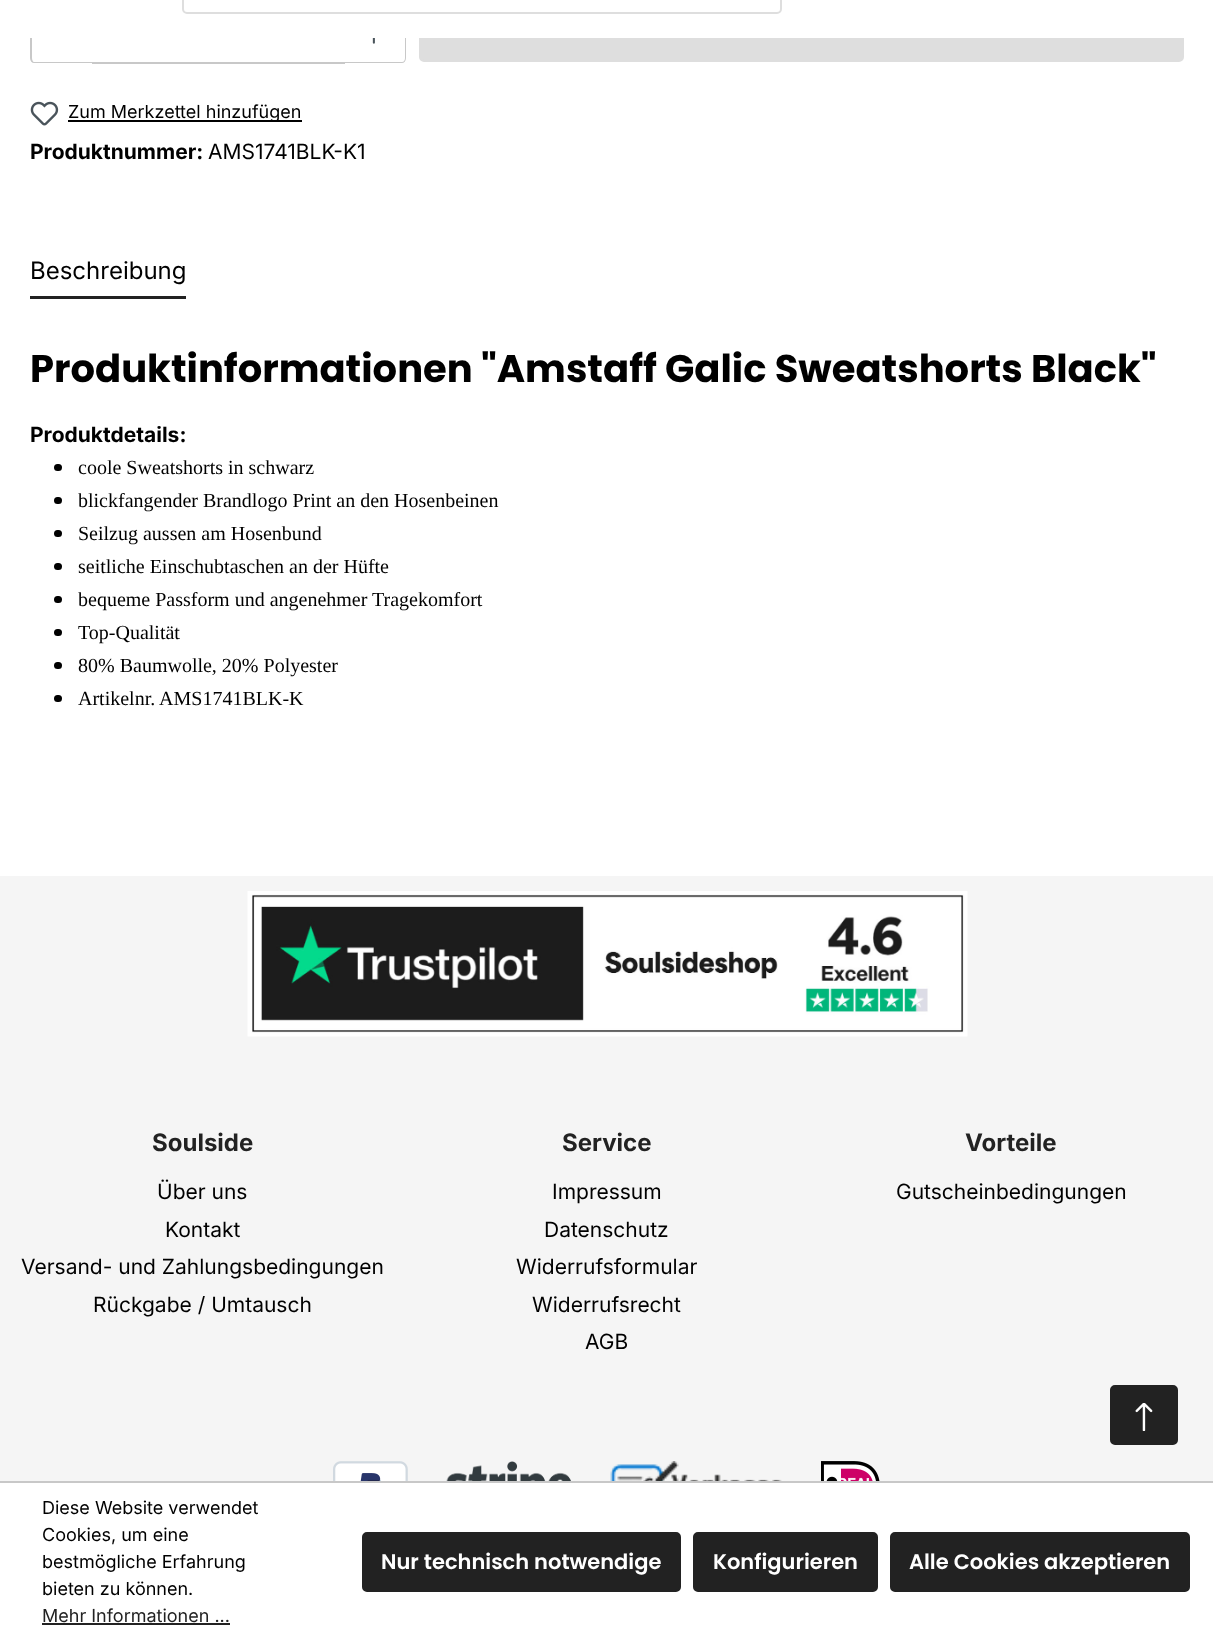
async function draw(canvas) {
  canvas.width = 1213
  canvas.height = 1640
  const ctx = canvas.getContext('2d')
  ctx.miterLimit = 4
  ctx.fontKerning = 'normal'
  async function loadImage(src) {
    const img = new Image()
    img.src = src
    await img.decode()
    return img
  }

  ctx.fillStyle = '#fff'
  ctx.fillRect(0, 0, 1213, 1640)
  ctx.fillStyle = '#c8c8c8'
  ctx.fillRect(92, 62, 253, 2)
  ctx.beginPath()
  ctx.moveTo(34, 2)
  ctx.lineTo(93, 2)
  ctx.lineTo(93, 63)
  ctx.lineTo(34, 63)
  ctx.bezierCurveTo(32, 63, 30, 61, 30, 58)
  ctx.lineTo(30, 6)
  ctx.bezierCurveTo(30, 4, 32, 2, 34, 2)
  ctx.closePath()
  ctx.moveTo(34, 3)
  ctx.lineTo(93, 3)
  ctx.lineTo(93, 62)
  ctx.lineTo(34, 62)
  ctx.bezierCurveTo(33, 62, 32, 60, 32, 58)
  ctx.lineTo(32, 6)
  ctx.bezierCurveTo(32, 4, 33, 3, 34, 3)
  ctx.closePath()
  ctx.fill('evenodd')
  ctx.beginPath()
  ctx.moveTo(344, 2)
  ctx.lineTo(402, 2)
  ctx.bezierCurveTo(404, 2, 406, 4, 406, 6)
  ctx.lineTo(406, 58)
  ctx.bezierCurveTo(406, 61, 404, 63, 402, 63)
  ctx.lineTo(344, 63)
  ctx.closePath()
  ctx.moveTo(344, 3)
  ctx.lineTo(402, 3)
  ctx.bezierCurveTo(404, 3, 405, 4, 405, 6)
  ctx.lineTo(405, 58)
  ctx.bezierCurveTo(405, 60, 404, 62, 402, 62)
  ctx.lineTo(344, 62)
  ctx.closePath()
  ctx.fill('evenodd')
  ctx.fillStyle = '#dedede'
  ctx.beginPath()
  ctx.roundRect(420, 3, 763, 58, 4)
  ctx.fill()
  ctx.strokeStyle = '#dedede'
  ctx.lineWidth = 2
  ctx.stroke()
  ctx.fillStyle = '#fff'
  ctx.fillRect(30, 2, 1154, 36)
  ctx.beginPath()
  ctx.roundRect(183, -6, 598, 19, 4)
  ctx.stroke()
  ctx.drawImage(await loadImage('image0.png'), 372, 38, 3, 6)
  ctx.drawImage(await loadImage('image1.png'), 30, 101, 29, 25)
  ctx.fillStyle = '#000'
  ctx.fillRect(68, 120, 234, 2)
  ctx.font = '18px Inter'
  ctx.fillText('Zum Merkzettel hinzufügen', 68, 118)
  ctx.font = 'bold 21px Inter'
  ctx.fillText('Produktnummer:', 30, 159)
  ctx.font = '21px Inter'
  ctx.fillText('AMS1741BLK-K1', 208, 159)
  ctx.fillStyle = '#222'
  ctx.fillRect(30, 296, 156, 3)
  ctx.font = '24px Inter'
  ctx.fillStyle = '#000'
  ctx.fillText('Beschreibung', 30, 279)
  ctx.font = 'bold 38.5px Poppins'
  ctx.fillText('Produktinformationen "Amstaff Galic Sweatshorts Black"', 30, 382)
  ctx.font = 'bold 21px Inter'
  ctx.fillText('Produktdetails:', 30, 442)
  ctx.beginPath()
  ctx.roundRect(54, 464, 8, 7, 3.5)
  ctx.fill()
  ctx.font = '20px Liberation Serif'
  ctx.fillText('coole Sweatshorts in schwarz', 78, 474)
  ctx.beginPath()
  ctx.roundRect(54, 497, 8, 7, 3.5)
  ctx.fill()
  ctx.fillText('blickfangender Brandlogo Print an den Hosenbeinen', 78, 507)
  ctx.beginPath()
  ctx.roundRect(54, 530, 8, 7, 3.5)
  ctx.fill()
  ctx.fillText('Seilzug aussen am Hosenbund', 78, 540)
  ctx.beginPath()
  ctx.roundRect(54, 563, 8, 7, 3.5)
  ctx.fill()
  ctx.fillText('seitliche Einschubtaschen an der Hüfte', 78, 573)
  ctx.beginPath()
  ctx.roundRect(54, 596, 8, 7, 3.5)
  ctx.fill()
  ctx.fillText('bequeme Passform und angenehmer Tragekomfort', 78, 606)
  ctx.beginPath()
  ctx.roundRect(54, 629, 8, 7, 3.5)
  ctx.fill()
  ctx.fillText('Top-Qualität', 78, 639)
  ctx.beginPath()
  ctx.roundRect(54, 662, 8, 7, 3.5)
  ctx.fill()
  ctx.fillText('80% Baumwolle, 20% Polyester', 78, 672)
  ctx.beginPath()
  ctx.roundRect(54, 695, 8, 7, 3.5)
  ctx.fill()
  ctx.fillText('Artikelnr. AMS1741BLK-K', 78, 705)
  ctx.fillStyle = '#f5f5f5'
  ctx.fillRect(0, 876, 1213, 605)
  ctx.drawImage(await loadImage('image2.png'), 247, 891, 721, 146)
  ctx.font = 'bold 24px Inter'
  ctx.fillStyle = '#222'
  ctx.fillText('Soulside', 152, 1151)
  ctx.font = '21px Inter'
  ctx.fillStyle = '#000'
  ctx.fillText('Über uns', 157, 1199)
  ctx.fillText('Kontakt', 165, 1237)
  ctx.fillText('Versand- und Zahlungsbedingungen', 21, 1274)
  ctx.fillText('Rückgabe / Umtausch', 93, 1312)
  ctx.font = 'bold 24px Inter'
  ctx.fillStyle = '#222'
  ctx.fillText('Service', 562, 1151)
  ctx.font = '21px Inter'
  ctx.fillStyle = '#000'
  ctx.fillText('Impressum', 552, 1199)
  ctx.fillText('Datenschutz', 544, 1237)
  ctx.fillText('Widerrufsformular', 516, 1274)
  ctx.fillText('Widerrufsrecht', 532, 1312)
  ctx.fillText('AGB', 585, 1349)
  ctx.font = 'bold 24px Inter'
  ctx.fillStyle = '#222'
  ctx.fillText('Vorteile', 965, 1151)
  ctx.font = '21px Inter'
  ctx.fillStyle = '#000'
  ctx.fillText('Gutscheinbedingungen', 896, 1199)
  ctx.drawImage(await loadImage('image3.png'), 333, 1461, 75, 20)
  ctx.drawImage(await loadImage('image4.png'), 446, 1461, 125, 20)
  ctx.drawImage(await loadImage('image5.png'), 610, 1461, 172, 20)
  ctx.drawImage(await loadImage('image6.png'), 821, 1461, 59, 20)
  ctx.fillStyle = '#222'
  ctx.beginPath()
  ctx.roundRect(1111, 1386, 66, 58, 4)
  ctx.fill()
  ctx.strokeStyle = '#222'
  ctx.stroke()
  ctx.drawImage(await loadImage('image7.png'), 1135, 1403, 18, 28)
  ctx.fillStyle = '#c8c8c8'
  ctx.fillRect(0, 1481, 1213, 2)
  ctx.font = '18px Inter'
  ctx.fillStyle = '#000'
  ctx.fillText('Diese Website verwendet', 42, 1514)
  ctx.fillText('Cookies, um eine', 42, 1541)
  ctx.fillText('bestmögliche Erfahrung', 42, 1568)
  ctx.fillText('bieten zu können.', 42, 1595)
  ctx.fillStyle = '#222'
  ctx.fillText('Mehr Informationen ...', 42, 1622)
  ctx.fillRect(42, 1623, 188, 2)
  ctx.beginPath()
  ctx.roundRect(363, 1533, 317, 58, 4)
  ctx.fill()
  ctx.stroke()
  ctx.font = '600 21px Poppins'
  ctx.fillStyle = '#fff'
  ctx.fillText('Nur technisch notwendige', 381, 1569)
  ctx.fillStyle = '#222'
  ctx.beginPath()
  ctx.roundRect(694, 1533, 183, 58, 4)
  ctx.fill()
  ctx.stroke()
  ctx.fillStyle = '#fff'
  ctx.fillText('Konfigurieren', 713, 1569)
  ctx.fillStyle = '#222'
  ctx.beginPath()
  ctx.roundRect(891, 1533, 298, 58, 4)
  ctx.fill()
  ctx.stroke()
  ctx.fillStyle = '#fff'
  ctx.fillText('Alle Cookies akzeptieren', 909, 1569)
}

draw(document.querySelector('canvas'))
